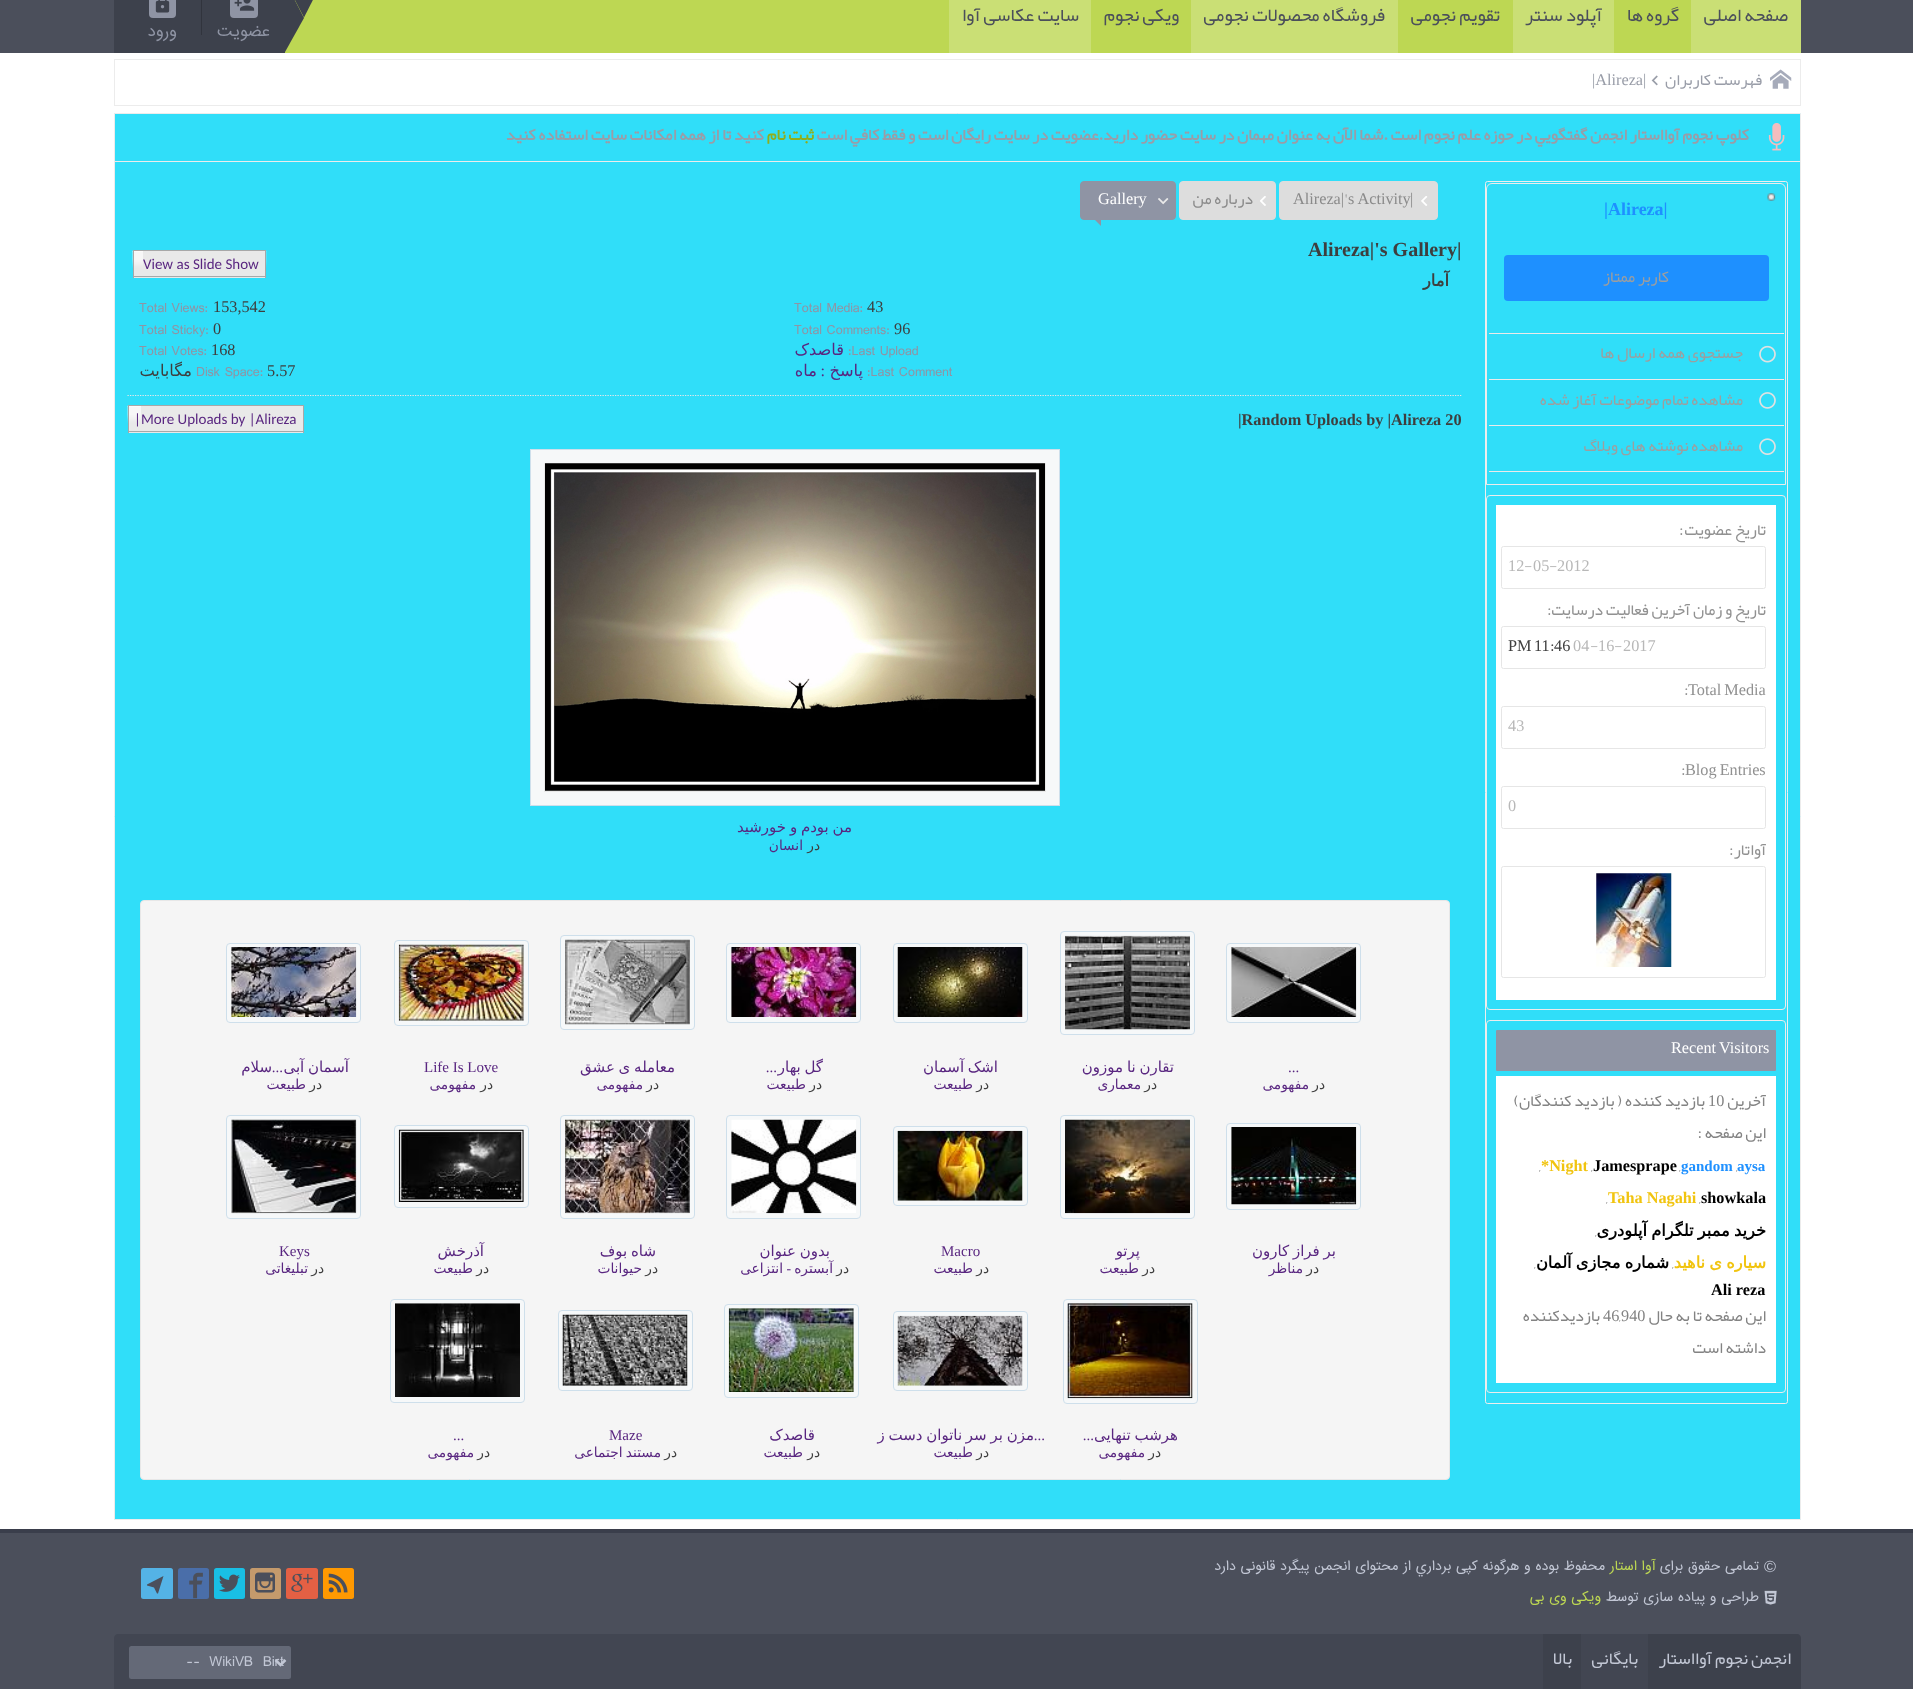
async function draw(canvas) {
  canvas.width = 1913
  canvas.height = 1689
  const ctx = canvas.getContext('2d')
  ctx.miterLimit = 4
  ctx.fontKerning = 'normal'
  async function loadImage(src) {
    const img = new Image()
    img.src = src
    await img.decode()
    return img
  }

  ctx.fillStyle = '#fff'
  ctx.fillRect(0, 0, 1913, 1689)
  ctx.fillStyle = '#4b4f5b'
  ctx.fillRect(0, 0, 1913, 53)
  ctx.fillStyle = '#bdd753'
  ctx.fillRect(285, 0, 1406, 53)
  ctx.fillStyle = '#cadf75'
  ctx.fillRect(1691, 0, 110, 53)
  ctx.direction = 'rtl'
  ctx.font = '18.75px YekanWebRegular'
  ctx.fillStyle = '#4b4f5b'
  ctx.fillText('صفحه اصلی', 1788, 21)
  ctx.fillText('گروه ها', 1679, 21)
  ctx.fillStyle = '#cadf75'
  ctx.fillRect(1513, 0, 101, 53)
  ctx.fillStyle = '#4b4f5b'
  ctx.fillText('آپلود سنتر', 1602, 21)
  ctx.fillText('تقویم نجومی', 1500, 21)
  ctx.fillStyle = '#cadf75'
  ctx.fillRect(1191, 0, 207, 53)
  ctx.fillStyle = '#4b4f5b'
  ctx.fillText('فروشگاه محصولات نجومی', 1385, 21)
  ctx.fillText('ویکی نجوم', 1179, 21)
  ctx.fillStyle = '#cadf75'
  ctx.fillRect(949, 0, 142, 53)
  ctx.fillStyle = '#4b4f5b'
  ctx.fillText('سایت عکاسی آوا', 1079, 21)
  ctx.fillStyle = '#3d414c'
  ctx.fillRect(114, 0, 171, 53)
  ctx.beginPath()
  ctx.moveTo(285, -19)
  ctx.lineTo(322.5, -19)
  ctx.lineTo(304, 17.5)
  ctx.closePath()
  ctx.fill()
  ctx.beginPath()
  ctx.moveTo(285, 52)
  ctx.lineTo(285, -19)
  ctx.lineTo(304, 18)
  ctx.closePath()
  ctx.fill()
  ctx.fillStyle = '#8f94a4'
  ctx.beginPath()
  ctx.roundRect(230, -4, 28, 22, 4)
  ctx.fill()
  ctx.drawImage(await loadImage('image0.png'), 234, 0, 21, 11)
  ctx.font = '15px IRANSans'
  ctx.fillText('عضويت', 270, 36)
  ctx.fillStyle = '#31343d'
  ctx.fillRect(201, 0, 1, 35)
  ctx.fillStyle = '#8f94a4'
  ctx.beginPath()
  ctx.roundRect(149, -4, 27, 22, 4)
  ctx.fill()
  ctx.drawImage(await loadImage('image1.png'), 155, 0, 15, 13)
  ctx.fillText('ورود', 177, 36)
  ctx.strokeStyle = '#ececec'
  ctx.strokeRect(114.5, 59.5, 1686, 46)
  ctx.drawImage(await loadImage('image2.png'), 1770, 69, 22, 20)
  ctx.font = '16.25px YekanWebRegular'
  ctx.fillStyle = '#999da8'
  ctx.fillText('فهرست کاربران', 1762, 85)
  ctx.drawImage(await loadImage('image3.png'), 1651, 75, 7, 11)
  ctx.direction = 'ltr'
  ctx.font = '16.25px Liberation Serif'
  ctx.fillText('|Alireza|', 1592, 85)
  ctx.fillStyle = '#30def9'
  ctx.beginPath()
  ctx.rect(114.5, 113.5, 1686, 1406)
  ctx.fill()
  ctx.stroke()
  ctx.fillStyle = '#ececec'
  ctx.fillRect(115, 161, 1685, 1)
  ctx.drawImage(await loadImage('image4.png'), 1768, 123, 17, 28)
  ctx.direction = 'rtl'
  ctx.font = 'bold 16.25px YekanWebRegular'
  ctx.fillStyle = '#999da8'
  ctx.fillText('كلوپ نجوم آوااستار انجمن گفتگويي در حوزه علم نجوم است .شما الآن به عنوان مهمان در سايت حضور داريد.عضويت در سايت رايگان است و فقط كافي است', 1749, 140)
  ctx.fillStyle = '#91ae1b'
  ctx.fillText('ثبت نام', 814, 140)
  ctx.fillStyle = '#999da8'
  ctx.fillText('كنيد تا از همه امكانات سايت استفاده كنيد', 764, 140)
  ctx.beginPath()
  ctx.roundRect(1485.5, 181.5, 302, 1222, 2)
  ctx.strokeStyle = '#eee'
  ctx.stroke()
  ctx.beginPath()
  ctx.roundRect(1486.5, 183.5, 299, 301, [5.5, 5.5, 0, 0])
  ctx.strokeStyle = '#ececec'
  ctx.stroke()
  ctx.drawImage(await loadImage('image5.png'), 1767, 193, 9, 8)
  ctx.direction = 'ltr'
  ctx.font = 'bold 18px Liberation Serif'
  ctx.fillStyle = '#1e90ff'
  ctx.fillText('|Alireza|', 1604, 215)
  ctx.beginPath()
  ctx.roundRect(1504, 255, 265, 46, 4)
  ctx.fill()
  ctx.direction = 'rtl'
  ctx.font = '16.25px YekanWebRegular'
  ctx.fillStyle = '#9e9e9e'
  ctx.fillText('کاربر ممتاز', 1669, 282)
  ctx.fillStyle = '#eaeaea'
  ctx.fillRect(1489, 333, 295, 1)
  ctx.fillRect(1489, 379, 295, 1)
  ctx.drawImage(await loadImage('image6.png'), 1759, 345, 17, 18)
  ctx.fillStyle = '#9e9e9e'
  ctx.fillText('جستجوی همه ارسال ها', 1743, 358)
  ctx.fillStyle = '#eaeaea'
  ctx.fillRect(1489, 425, 295, 1)
  ctx.drawImage(await loadImage('image7.png'), 1759, 392, 17, 17)
  ctx.fillStyle = '#9e9e9e'
  ctx.fillText('مشاهده تمام موضوعات آغاز شده', 1743, 405)
  ctx.fillStyle = '#eaeaea'
  ctx.fillRect(1489, 471, 295, 1)
  ctx.drawImage(await loadImage('image8.png'), 1759, 438, 17, 17)
  ctx.fillStyle = '#9e9e9e'
  ctx.fillText('مشاهده نوشته های وبلاگ', 1743, 451)
  ctx.beginPath()
  ctx.roundRect(1486.5, 495.5, 299, 514, 3.5)
  ctx.stroke()
  ctx.fillStyle = '#fff'
  ctx.fillRect(1496, 505, 280, 495)
  ctx.fillStyle = '#919191'
  ctx.fillText('تاریخ عضویت', 1766, 535)
  ctx.direction = 'ltr'
  ctx.fillText(':', 1679, 535)
  ctx.beginPath()
  ctx.roundRect(1501.5, 546.5, 264, 42, 2)
  ctx.strokeStyle = '#e6e6e6'
  ctx.stroke()
  ctx.font = '16.25px Liberation Serif'
  ctx.fillStyle = '#b8b8b8'
  ctx.fillText('2012', 1557, 571)
  ctx.font = '16.25px YekanWebRegular'
  ctx.fillText('-', 1549, 571)
  ctx.font = '16.25px Liberation Serif'
  ctx.fillText('05', 1533, 571)
  ctx.font = '16.25px YekanWebRegular'
  ctx.fillText('-', 1524, 571)
  ctx.font = '16.25px Liberation Serif'
  ctx.fillText('12', 1508, 571)
  ctx.direction = 'rtl'
  ctx.font = '16.25px YekanWebRegular'
  ctx.fillStyle = '#919191'
  ctx.fillText('تاریخ و زمان آخرین فعالیت درسایت', 1766, 615)
  ctx.direction = 'ltr'
  ctx.fillText(':', 1547, 615)
  ctx.beginPath()
  ctx.roundRect(1501.5, 626.5, 264, 42, 2)
  ctx.stroke()
  ctx.font = '16.25px Liberation Serif'
  ctx.fillStyle = '#b8b8b8'
  ctx.fillText('2017', 1623, 651)
  ctx.font = '16.25px YekanWebRegular'
  ctx.fillText('-', 1614, 651)
  ctx.font = '16.25px Liberation Serif'
  ctx.fillText('16', 1598, 651)
  ctx.font = '16.25px YekanWebRegular'
  ctx.fillText('-', 1590, 651)
  ctx.font = '16.25px Liberation Serif'
  ctx.fillText('04', 1573, 651)
  ctx.fillStyle = '#3e3e3e'
  ctx.fillText('46', 1554, 651)
  ctx.font = '16.25px YekanWebRegular'
  ctx.fillText(':', 1550, 651)
  ctx.font = '16.25px Liberation Serif'
  ctx.fillText('11', 1534, 651)
  ctx.fillText('PM', 1508, 651)
  ctx.wordSpacing = '-1px'
  ctx.fillStyle = '#919191'
  ctx.fillText('Total Media', 1688, 695)
  ctx.wordSpacing = '0px'
  ctx.font = '16.25px YekanWebRegular'
  ctx.fillText(':', 1684, 695)
  ctx.beginPath()
  ctx.roundRect(1501.5, 706.5, 264, 42, 2)
  ctx.stroke()
  ctx.font = '16.25px Liberation Serif'
  ctx.fillStyle = '#b8b8b8'
  ctx.fillText('43', 1508, 731)
  ctx.wordSpacing = '-1px'
  ctx.fillStyle = '#919191'
  ctx.fillText('Blog Entries', 1685, 775)
  ctx.wordSpacing = '0px'
  ctx.font = '16.25px YekanWebRegular'
  ctx.fillText(':', 1681, 775)
  ctx.beginPath()
  ctx.roundRect(1501.5, 786.5, 264, 42, 2)
  ctx.stroke()
  ctx.font = '16.25px Liberation Serif'
  ctx.fillStyle = '#b8b8b8'
  ctx.fillText('0', 1508, 811)
  ctx.direction = 'rtl'
  ctx.font = '16.25px YekanWebRegular'
  ctx.fillStyle = '#919191'
  ctx.fillText('آواتار', 1766, 855)
  ctx.direction = 'ltr'
  ctx.fillText(':', 1729, 855)
  ctx.beginPath()
  ctx.roundRect(1501.5, 866.5, 264, 111, 2)
  ctx.stroke()
  ctx.drawImage(await loadImage('image9.png'), 1596, 873, 76, 94)
  ctx.beginPath()
  ctx.roundRect(1486.5, 1020.5, 299, 372, 3.5)
  ctx.strokeStyle = '#ececec'
  ctx.stroke()
  ctx.fillStyle = '#8f94a4'
  ctx.beginPath()
  ctx.roundRect(1496, 1030, 280, 41, 1)
  ctx.fill()
  ctx.wordSpacing = '-1px'
  ctx.font = '16.25px Liberation Serif'
  ctx.fillStyle = '#fff'
  ctx.fillText('Recent Visitors', 1671, 1053)
  ctx.fillRect(1496, 1076, 280, 307)
  ctx.wordSpacing = '0px'
  ctx.direction = 'rtl'
  ctx.font = '16.25px YekanWebRegular'
  ctx.fillStyle = '#838383'
  ctx.fillText('آخرین', 1766, 1106)
  ctx.direction = 'ltr'
  ctx.font = '16.25px Liberation Serif'
  ctx.fillText('10', 1708, 1106)
  ctx.direction = 'rtl'
  ctx.font = '16.25px YekanWebRegular'
  ctx.fillText('بازدید کننده ( بازدید کنندگان)', 1705, 1106)
  ctx.fillText('این صفحه :', 1766, 1138)
  ctx.direction = 'ltr'
  ctx.font = 'bold 15px Liberation Serif'
  ctx.fillStyle = '#1e90ff'
  ctx.fillText('aysa', 1737, 1171)
  ctx.font = '16.25px YekanWebRegular'
  ctx.fillStyle = '#838383'
  ctx.fillText(',', 1736, 1171)
  ctx.font = 'bold 15px Liberation Serif'
  ctx.fillStyle = '#1e90ff'
  ctx.fillText('gandom', 1681, 1171)
  ctx.font = '16.25px YekanWebRegular'
  ctx.fillStyle = '#838383'
  ctx.fillText(',', 1679, 1171)
  ctx.font = 'bold 16.25px Liberation Serif'
  ctx.fillStyle = '#000'
  ctx.fillText('Jamesprape', 1593, 1171)
  ctx.font = '16.25px YekanWebRegular'
  ctx.fillStyle = '#838383'
  ctx.fillText(',', 1591, 1171)
  ctx.font = 'bold 16.25px Liberation Serif'
  ctx.fillStyle = '#f1c40f'
  ctx.fillText('*Night', 1541, 1171)
  ctx.font = '16.25px YekanWebRegular'
  ctx.fillStyle = '#838383'
  ctx.fillText(',', 1539, 1171)
  ctx.font = 'bold 16.25px Liberation Serif'
  ctx.fillStyle = '#000'
  ctx.fillText('showkala', 1701, 1203)
  ctx.font = '16.25px YekanWebRegular'
  ctx.fillStyle = '#838383'
  ctx.fillText(',', 1699, 1203)
  ctx.font = 'bold 16.25px Liberation Serif'
  ctx.fillStyle = '#f1c40f'
  ctx.fillText('Taha Nagahi', 1608, 1203)
  ctx.font = '16.25px YekanWebRegular'
  ctx.fillStyle = '#838383'
  ctx.fillText(',', 1606, 1203)
  ctx.wordSpacing = '-1px'
  ctx.direction = 'rtl'
  ctx.font = 'bold 16.25px DejaVu Sans'
  ctx.fillStyle = '#000'
  ctx.fillText('خرید ممبر تلگرام آپلودری', 1766, 1236)
  ctx.wordSpacing = '0px'
  ctx.direction = 'ltr'
  ctx.font = '16.25px YekanWebRegular'
  ctx.fillStyle = '#838383'
  ctx.fillText(',', 1595, 1236)
  ctx.wordSpacing = '-1px'
  ctx.direction = 'rtl'
  ctx.font = 'bold 16.25px DejaVu Sans'
  ctx.fillStyle = '#f1c40f'
  ctx.fillText('سیاره ی ناهید', 1766, 1268)
  ctx.wordSpacing = '0px'
  ctx.direction = 'ltr'
  ctx.font = '16.25px YekanWebRegular'
  ctx.fillStyle = '#838383'
  ctx.fillText(',', 1672, 1268)
  ctx.wordSpacing = '-1px'
  ctx.direction = 'rtl'
  ctx.font = 'bold 16.25px DejaVu Sans'
  ctx.fillStyle = '#000'
  ctx.fillText('شماره مجازی آلمان', 1669, 1268)
  ctx.wordSpacing = '0px'
  ctx.direction = 'ltr'
  ctx.font = '16.25px YekanWebRegular'
  ctx.fillStyle = '#838383'
  ctx.fillText(',', 1534, 1268)
  ctx.font = 'bold 16.25px Liberation Serif'
  ctx.fillStyle = '#000'
  ctx.fillText('Ali reza', 1711, 1295)
  ctx.direction = 'rtl'
  ctx.font = '16.25px YekanWebRegular'
  ctx.fillStyle = '#838383'
  ctx.fillText('این صفحه تا به حال', 1766, 1321)
  ctx.direction = 'ltr'
  ctx.font = '16.25px Liberation Serif'
  ctx.fillText('940', 1621, 1321)
  ctx.font = '16.25px YekanWebRegular'
  ctx.fillText(',', 1619, 1321)
  ctx.font = '16.25px Liberation Serif'
  ctx.fillText('46', 1603, 1321)
  ctx.direction = 'rtl'
  ctx.font = '16.25px YekanWebRegular'
  ctx.fillText('بازدیدکننده', 1600, 1321)
  ctx.fillText('داشته است', 1766, 1353)
  ctx.fillStyle = '#ddd'
  ctx.beginPath()
  ctx.roundRect(1279.5, 181.5, 158, 38, 3.5)
  ctx.fill()
  ctx.strokeStyle = '#ddd'
  ctx.stroke()
  ctx.drawImage(await loadImage('image10.png'), 1421, 196, 7, 10)
  ctx.direction = 'ltr'
  ctx.font = '16.25px Liberation Serif'
  ctx.fillStyle = '#8a8a8a'
  ctx.fillText('|', 1410, 204)
  ctx.fillText('s Activity', 1348, 204)
  ctx.font = '16.25px YekanWebRegular'
  ctx.fillText('\'', 1344, 204)
  ctx.font = '16.25px Liberation Serif'
  ctx.fillText('Alireza|', 1293, 204)
  ctx.fillStyle = '#ddd'
  ctx.beginPath()
  ctx.roundRect(1179.5, 181.5, 96, 38, 3.5)
  ctx.fill()
  ctx.stroke()
  ctx.drawImage(await loadImage('image11.png'), 1260, 196, 6, 10)
  ctx.direction = 'rtl'
  ctx.font = '16.25px YekanWebRegular'
  ctx.fillStyle = '#8a8a8a'
  ctx.fillText('درباره من', 1253, 204)
  ctx.fillStyle = '#8f94a4'
  ctx.beginPath()
  ctx.roundRect(1080.5, 181.5, 95, 38, 3.5)
  ctx.fill()
  ctx.strokeStyle = '#8f94a4'
  ctx.stroke()
  ctx.drawImage(await loadImage('image12.png'), 1158, 198, 11, 7)
  ctx.direction = 'ltr'
  ctx.font = '16.25px Liberation Serif'
  ctx.fillStyle = '#fff'
  ctx.fillText('Gallery', 1098, 204)
  ctx.fillStyle = '#8f94a4'
  ctx.beginPath()
  ctx.moveTo(1094, 219)
  ctx.lineTo(1101, 219)
  ctx.lineTo(1101, 226)
  ctx.closePath()
  ctx.fill()
  ctx.font = 'bold 20px Liberation Serif'
  ctx.fillStyle = '#3e3e3e'
  ctx.fillText('Alireza|\'s Gallery|', 1308, 256)
  ctx.fillStyle = '#e9e9e9'
  ctx.fillRect(134, 251, 9, 27)
  ctx.drawImage(await loadImage('image13.png'), 132, 250, 135, 18)
  ctx.fillRect(143, 251, 122, 27)
  ctx.font = '15px Carlito'
  ctx.fillStyle = '#592680'
  ctx.fillText('View as Slide Show', 143, 269)
  ctx.fillStyle = '#a8a8a8'
  ctx.fillRect(133, 250, 133, 1)
  ctx.fillRect(133, 276, 10, 1)
  ctx.fillRect(133, 250, 1, 28)
  ctx.fillRect(265, 250, 1, 28)
  ctx.fillRect(143, 276, 123, 1)
  ctx.beginPath()
  ctx.moveTo(127.5, 395.5)
  ctx.lineTo(1462.5, 395.5)
  ctx.strokeStyle = '#e9e9e9'
  ctx.lineWidth = 1.2
  ctx.setLineDash([1.25, 1.25])
  ctx.stroke()
  ctx.direction = 'rtl'
  ctx.font = 'bold 16.25px DejaVu Sans'
  ctx.fillStyle = '#3e3e3e'
  ctx.fillText('آمار', 1449, 286)
  ctx.direction = 'ltr'
  ctx.font = '16.25px Liberation Serif'
  ctx.fillText('43', 867, 312)
  ctx.font = '12.5px IRANSans'
  ctx.fillStyle = '#8f94a4'
  ctx.fillText('Total Media:', 794, 312)
  ctx.font = '16.25px Liberation Serif'
  ctx.fillStyle = '#3e3e3e'
  ctx.fillText('96', 894, 334)
  ctx.font = '12.5px IRANSans'
  ctx.fillStyle = '#8f94a4'
  ctx.fillText('Total Comments:', 794, 334)
  ctx.fillText(':Last Upload', 848, 355)
  ctx.direction = 'rtl'
  ctx.font = '16.25px DejaVu Sans'
  ctx.fillStyle = '#592680'
  ctx.fillText('قاصدک', 844, 355)
  ctx.direction = 'ltr'
  ctx.font = '12.5px IRANSans'
  ctx.fillStyle = '#8f94a4'
  ctx.fillText(':Last Comment', 867, 376)
  ctx.direction = 'rtl'
  ctx.font = '16.25px DejaVu Sans'
  ctx.fillStyle = '#592680'
  ctx.fillText('پاسخ', 863, 376)
  ctx.font = '16.25px Liberation Serif'
  ctx.fillText(':', 825, 376)
  ctx.font = '16.25px DejaVu Sans'
  ctx.fillText('ماه', 817, 376)
  ctx.direction = 'ltr'
  ctx.font = '16.25px Liberation Serif'
  ctx.fillStyle = '#3e3e3e'
  ctx.fillText('153,542', 213, 312)
  ctx.font = '12.5px IRANSans'
  ctx.fillStyle = '#8f94a4'
  ctx.fillText('Total Views:', 139, 312)
  ctx.font = '16.25px Liberation Serif'
  ctx.fillStyle = '#3e3e3e'
  ctx.fillText('0', 213, 334)
  ctx.font = '12.5px IRANSans'
  ctx.fillStyle = '#8f94a4'
  ctx.fillText('Total Sticky:', 139, 334)
  ctx.font = '16.25px Liberation Serif'
  ctx.fillStyle = '#3e3e3e'
  ctx.fillText('168', 211, 355)
  ctx.font = '12.5px IRANSans'
  ctx.fillStyle = '#8f94a4'
  ctx.fillText('Total Votes:', 139, 355)
  ctx.font = '16.25px Liberation Serif'
  ctx.fillStyle = '#3e3e3e'
  ctx.fillText('5.57', 267, 376)
  ctx.font = '12.5px IRANSans'
  ctx.fillStyle = '#8f94a4'
  ctx.fillText('Disk Space:', 196, 376)
  ctx.direction = 'rtl'
  ctx.font = '16.25px DejaVu Sans'
  ctx.fillStyle = '#3e3e3e'
  ctx.fillText('مگابایت', 192, 376)
  ctx.direction = 'ltr'
  ctx.font = 'bold 16.25px Liberation Serif'
  ctx.fillText('|Random Uploads by |Alireza 20', 1238, 425)
  ctx.fillStyle = '#e9e9e9'
  ctx.fillRect(129, 406, 174, 27)
  ctx.drawImage(await loadImage('image14.png'), 127, 405, 14, 18)
  ctx.font = '15px Carlito'
  ctx.fillStyle = '#592680'
  ctx.fillText('|More Uploads by |Alireza', 134, 424)
  ctx.fillStyle = '#a8a8a8'
  ctx.fillRect(128, 405, 176, 1)
  ctx.fillRect(128, 431, 13, 1)
  ctx.fillRect(128, 405, 1, 28)
  ctx.fillRect(303, 405, 1, 28)
  ctx.fillRect(141, 431, 163, 1)
  ctx.fillStyle = '#e9e9e9'
  ctx.beginPath()
  ctx.rect(537.5, 456.5, 515, 342)
  ctx.fill()
  ctx.strokeStyle = '#f6f8f9'
  ctx.lineWidth = 13
  ctx.setLineDash([])
  ctx.stroke()
  ctx.drawImage(await loadImage('image15.png'), 545, 463, 500, 328)
  ctx.strokeStyle = '#cedfeb'
  ctx.lineWidth = 1
  ctx.strokeRect(530.5, 449.5, 529, 356)
  ctx.wordSpacing = '-1px'
  ctx.direction = 'rtl'
  ctx.font = '15px DejaVu Sans'
  ctx.fillStyle = '#592680'
  ctx.fillText('من بودم و خورشید', 852, 832)
  ctx.wordSpacing = '0px'
  ctx.font = '13.75px DejaVu Sans'
  ctx.fillStyle = '#3e3e3e'
  ctx.fillText('در', 820, 850)
  ctx.fillStyle = '#592680'
  ctx.fillText('انسان', 803, 850)
  ctx.fillStyle = '#f5f5f5'
  ctx.beginPath()
  ctx.roundRect(140.5, 900.5, 1309, 579, 3.5)
  ctx.fill()
  ctx.strokeStyle = '#e7e7e7'
  ctx.stroke()
  ctx.fillStyle = '#f6f8f9'
  ctx.beginPath()
  ctx.roundRect(1226.5, 943.5, 134, 79, 3.5)
  ctx.fill()
  ctx.strokeStyle = '#cedfeb'
  ctx.stroke()
  ctx.drawImage(await loadImage('image16.png'), 1231, 947, 126, 70)
  ctx.direction = 'ltr'
  ctx.font = '15px Liberation Serif'
  ctx.fillStyle = '#592680'
  ctx.fillText('...', 1288, 1072)
  ctx.direction = 'rtl'
  ctx.font = '13.75px DejaVu Sans'
  ctx.fillStyle = '#3e3e3e'
  ctx.fillText('در', 1325, 1089)
  ctx.fillStyle = '#592680'
  ctx.fillText('مفهومی', 1309, 1089)
  ctx.fillStyle = '#f6f8f9'
  ctx.beginPath()
  ctx.roundRect(1060.5, 931.5, 134, 103, 3.5)
  ctx.fill()
  ctx.stroke()
  ctx.drawImage(await loadImage('image17.png'), 1065, 935, 125, 95)
  ctx.wordSpacing = '-1px'
  ctx.font = '15px DejaVu Sans'
  ctx.fillStyle = '#592680'
  ctx.fillText('تقارن نا موزون', 1174, 1072)
  ctx.wordSpacing = '0px'
  ctx.font = '13.75px DejaVu Sans'
  ctx.fillStyle = '#3e3e3e'
  ctx.fillText('در', 1157, 1089)
  ctx.fillStyle = '#592680'
  ctx.fillText('معماری', 1141, 1089)
  ctx.fillStyle = '#f6f8f9'
  ctx.beginPath()
  ctx.roundRect(893.5, 943.5, 134, 79, 3.5)
  ctx.fill()
  ctx.stroke()
  ctx.drawImage(await loadImage('image18.png'), 897, 947, 126, 70)
  ctx.wordSpacing = '-1px'
  ctx.font = '15px DejaVu Sans'
  ctx.fillStyle = '#592680'
  ctx.fillText('اشک آسمان', 998, 1072)
  ctx.wordSpacing = '0px'
  ctx.font = '13.75px DejaVu Sans'
  ctx.fillStyle = '#3e3e3e'
  ctx.fillText('در', 989, 1089)
  ctx.fillStyle = '#592680'
  ctx.fillText('طبیعت', 973, 1089)
  ctx.fillStyle = '#f6f8f9'
  ctx.beginPath()
  ctx.roundRect(726.5, 943.5, 134, 79, 3.5)
  ctx.fill()
  ctx.stroke()
  ctx.drawImage(await loadImage('image19.png'), 731, 947, 126, 70)
  ctx.font = '15px Liberation Serif'
  ctx.fillStyle = '#592680'
  ctx.fillText('...', 777, 1072)
  ctx.wordSpacing = '-1px'
  ctx.font = '15px DejaVu Sans'
  ctx.fillText('گل بهار', 823, 1072)
  ctx.wordSpacing = '0px'
  ctx.font = '13.75px DejaVu Sans'
  ctx.fillStyle = '#3e3e3e'
  ctx.fillText('در', 822, 1089)
  ctx.fillStyle = '#592680'
  ctx.fillText('طبیعت', 806, 1089)
  ctx.fillStyle = '#f6f8f9'
  ctx.beginPath()
  ctx.roundRect(560.5, 935.5, 134, 94, 3.5)
  ctx.fill()
  ctx.stroke()
  ctx.drawImage(await loadImage('image20.png'), 565, 939, 125, 86)
  ctx.wordSpacing = '-1px'
  ctx.font = '15px DejaVu Sans'
  ctx.fillStyle = '#592680'
  ctx.fillText('معامله ی عشق', 675, 1072)
  ctx.wordSpacing = '0px'
  ctx.font = '13.75px DejaVu Sans'
  ctx.fillStyle = '#3e3e3e'
  ctx.fillText('در', 659, 1089)
  ctx.fillStyle = '#592680'
  ctx.fillText('مفهومی', 643, 1089)
  ctx.fillStyle = '#f6f8f9'
  ctx.beginPath()
  ctx.roundRect(394.5, 940.5, 134, 85, 3.5)
  ctx.fill()
  ctx.stroke()
  ctx.drawImage(await loadImage('image21.png'), 398, 944, 126, 77)
  ctx.direction = 'ltr'
  ctx.font = '15px Liberation Serif'
  ctx.fillStyle = '#592680'
  ctx.fillText('Life Is Love', 424, 1072)
  ctx.direction = 'rtl'
  ctx.font = '13.75px DejaVu Sans'
  ctx.fillStyle = '#3e3e3e'
  ctx.fillText('در', 493, 1089)
  ctx.fillStyle = '#592680'
  ctx.fillText('مفهومی', 476, 1089)
  ctx.fillStyle = '#f6f8f9'
  ctx.beginPath()
  ctx.roundRect(226.5, 943.5, 134, 79, 3.5)
  ctx.fill()
  ctx.stroke()
  ctx.drawImage(await loadImage('image22.png'), 231, 947, 126, 70)
  ctx.wordSpacing = '-1px'
  ctx.font = '15px DejaVu Sans'
  ctx.fillStyle = '#592680'
  ctx.fillText('آسمان آبی', 349, 1072)
  ctx.wordSpacing = '0px'
  ctx.font = '15px Liberation Serif'
  ctx.fillText('...', 283, 1072)
  ctx.font = '15px DejaVu Sans'
  ctx.fillText('سلام', 272, 1072)
  ctx.font = '13.75px DejaVu Sans'
  ctx.fillStyle = '#3e3e3e'
  ctx.fillText('در', 322, 1089)
  ctx.fillStyle = '#592680'
  ctx.fillText('طبیعت', 306, 1089)
  ctx.fillStyle = '#f6f8f9'
  ctx.beginPath()
  ctx.roundRect(1226.5, 1123.5, 134, 86, 3.5)
  ctx.fill()
  ctx.stroke()
  ctx.drawImage(await loadImage('image23.png'), 1231, 1127, 126, 78)
  ctx.wordSpacing = '-1px'
  ctx.font = '15px DejaVu Sans'
  ctx.fillStyle = '#592680'
  ctx.fillText('بر فراز کارون', 1336, 1256)
  ctx.wordSpacing = '0px'
  ctx.font = '13.75px DejaVu Sans'
  ctx.fillStyle = '#3e3e3e'
  ctx.fillText('در', 1319, 1273)
  ctx.fillStyle = '#592680'
  ctx.fillText('مناظر', 1303, 1273)
  ctx.fillStyle = '#f6f8f9'
  ctx.beginPath()
  ctx.roundRect(1060.5, 1115.5, 134, 103, 3.5)
  ctx.fill()
  ctx.stroke()
  ctx.drawImage(await loadImage('image24.png'), 1065, 1119, 125, 95)
  ctx.font = '15px DejaVu Sans'
  ctx.fillStyle = '#592680'
  ctx.fillText('پرتو', 1140, 1256)
  ctx.font = '13.75px DejaVu Sans'
  ctx.fillStyle = '#3e3e3e'
  ctx.fillText('در', 1155, 1273)
  ctx.fillStyle = '#592680'
  ctx.fillText('طبیعت', 1139, 1273)
  ctx.fillStyle = '#f6f8f9'
  ctx.beginPath()
  ctx.roundRect(893.5, 1126.5, 134, 79, 3.5)
  ctx.fill()
  ctx.stroke()
  ctx.drawImage(await loadImage('image25.png'), 897, 1130, 126, 71)
  ctx.direction = 'ltr'
  ctx.font = '15px Liberation Serif'
  ctx.fillStyle = '#592680'
  ctx.fillText('Macro', 941, 1256)
  ctx.direction = 'rtl'
  ctx.font = '13.75px DejaVu Sans'
  ctx.fillStyle = '#3e3e3e'
  ctx.fillText('در', 989, 1273)
  ctx.fillStyle = '#592680'
  ctx.fillText('طبیعت', 973, 1273)
  ctx.fillStyle = '#f6f8f9'
  ctx.beginPath()
  ctx.roundRect(726.5, 1115.5, 134, 103, 3.5)
  ctx.fill()
  ctx.stroke()
  ctx.drawImage(await loadImage('image26.png'), 731, 1119, 126, 95)
  ctx.wordSpacing = '-1px'
  ctx.font = '15px DejaVu Sans'
  ctx.fillStyle = '#592680'
  ctx.fillText('بدون عنوان', 830, 1256)
  ctx.wordSpacing = '0px'
  ctx.font = '13.75px DejaVu Sans'
  ctx.fillStyle = '#3e3e3e'
  ctx.fillText('در', 849, 1273)
  ctx.fillStyle = '#592680'
  ctx.fillText('آبستره', 833, 1273)
  ctx.font = '13.75px Liberation Serif'
  ctx.fillText('-', 791, 1273)
  ctx.font = '13.75px DejaVu Sans'
  ctx.fillText('انتزاعی', 783, 1273)
  ctx.fillStyle = '#f6f8f9'
  ctx.beginPath()
  ctx.roundRect(560.5, 1115.5, 134, 103, 3.5)
  ctx.fill()
  ctx.stroke()
  ctx.drawImage(await loadImage('image27.png'), 565, 1119, 125, 95)
  ctx.wordSpacing = '-1px'
  ctx.font = '15px DejaVu Sans'
  ctx.fillStyle = '#592680'
  ctx.fillText('شاه بوف', 656, 1256)
  ctx.wordSpacing = '0px'
  ctx.font = '13.75px DejaVu Sans'
  ctx.fillStyle = '#3e3e3e'
  ctx.fillText('در', 658, 1273)
  ctx.fillStyle = '#592680'
  ctx.fillText('حیوانات', 642, 1273)
  ctx.fillStyle = '#f6f8f9'
  ctx.beginPath()
  ctx.roundRect(394.5, 1125.5, 134, 82, 3.5)
  ctx.fill()
  ctx.stroke()
  ctx.drawImage(await loadImage('image28.png'), 398, 1129, 126, 73)
  ctx.font = '15px DejaVu Sans'
  ctx.fillStyle = '#592680'
  ctx.fillText('آذرخش', 484, 1256)
  ctx.font = '13.75px DejaVu Sans'
  ctx.fillStyle = '#3e3e3e'
  ctx.fillText('در', 489, 1273)
  ctx.fillStyle = '#592680'
  ctx.fillText('طبیعت', 473, 1273)
  ctx.fillStyle = '#f6f8f9'
  ctx.beginPath()
  ctx.roundRect(226.5, 1115.5, 134, 103, 3.5)
  ctx.fill()
  ctx.stroke()
  ctx.drawImage(await loadImage('image29.png'), 231, 1119, 126, 95)
  ctx.direction = 'ltr'
  ctx.font = '15px Liberation Serif'
  ctx.fillStyle = '#592680'
  ctx.fillText('Keys', 279, 1256)
  ctx.direction = 'rtl'
  ctx.font = '13.75px DejaVu Sans'
  ctx.fillStyle = '#3e3e3e'
  ctx.fillText('در', 324, 1273)
  ctx.fillStyle = '#592680'
  ctx.fillText('تبلیغاتی', 308, 1273)
  ctx.fillStyle = '#f6f8f9'
  ctx.beginPath()
  ctx.roundRect(1063.5, 1299.5, 134, 104, 3.5)
  ctx.fill()
  ctx.stroke()
  ctx.drawImage(await loadImage('image30.png'), 1067, 1303, 126, 96)
  ctx.wordSpacing = '-1px'
  ctx.font = '15px DejaVu Sans'
  ctx.fillStyle = '#592680'
  ctx.fillText('هرشب تنهایی', 1178, 1440)
  ctx.wordSpacing = '0px'
  ctx.font = '15px Liberation Serif'
  ctx.fillText('...', 1094, 1440)
  ctx.font = '13.75px DejaVu Sans'
  ctx.fillStyle = '#3e3e3e'
  ctx.fillText('در', 1161, 1457)
  ctx.fillStyle = '#592680'
  ctx.fillText('مفهومی', 1145, 1457)
  ctx.fillStyle = '#f6f8f9'
  ctx.beginPath()
  ctx.roundRect(893.5, 1311.5, 134, 79, 3.5)
  ctx.fill()
  ctx.stroke()
  ctx.drawImage(await loadImage('image31.png'), 897, 1315, 126, 71)
  ctx.font = '15px Liberation Serif'
  ctx.fillStyle = '#592680'
  ctx.fillText('...', 1045, 1440)
  ctx.wordSpacing = '-1px'
  ctx.font = '15px DejaVu Sans'
  ctx.fillText('مزن بر سر ناتوان دست ز', 1034, 1440)
  ctx.wordSpacing = '0px'
  ctx.font = '13.75px DejaVu Sans'
  ctx.fillStyle = '#3e3e3e'
  ctx.fillText('در', 989, 1457)
  ctx.fillStyle = '#592680'
  ctx.fillText('طبیعت', 973, 1457)
  ctx.fillStyle = '#f6f8f9'
  ctx.beginPath()
  ctx.roundRect(724.5, 1304.5, 134, 93, 3.5)
  ctx.fill()
  ctx.stroke()
  ctx.drawImage(await loadImage('image32.png'), 728, 1308, 126, 84)
  ctx.font = '15px DejaVu Sans'
  ctx.fillStyle = '#592680'
  ctx.fillText('قاصدک', 815, 1440)
  ctx.font = '13.75px DejaVu Sans'
  ctx.fillStyle = '#3e3e3e'
  ctx.fillText('در', 820, 1457)
  ctx.fillStyle = '#592680'
  ctx.fillText('طبیعت', 803, 1457)
  ctx.fillStyle = '#f6f8f9'
  ctx.beginPath()
  ctx.roundRect(558.5, 1310.5, 134, 80, 3.5)
  ctx.fill()
  ctx.stroke()
  ctx.drawImage(await loadImage('image33.png'), 562, 1314, 126, 72)
  ctx.direction = 'ltr'
  ctx.font = '15px Liberation Serif'
  ctx.fillStyle = '#592680'
  ctx.fillText('Maze', 609, 1440)
  ctx.direction = 'rtl'
  ctx.font = '13.75px DejaVu Sans'
  ctx.fillStyle = '#3e3e3e'
  ctx.fillText('در', 677, 1457)
  ctx.wordSpacing = '-1px'
  ctx.fillStyle = '#592680'
  ctx.fillText('مستند اجتماعی', 661, 1457)
  ctx.fillStyle = '#f6f8f9'
  ctx.beginPath()
  ctx.roundRect(390.5, 1299.5, 134, 103, 3.5)
  ctx.fill()
  ctx.stroke()
  ctx.drawImage(await loadImage('image34.png'), 395, 1303, 125, 94)
  ctx.wordSpacing = '0px'
  ctx.direction = 'ltr'
  ctx.font = '15px Liberation Serif'
  ctx.fillStyle = '#592680'
  ctx.fillText('...', 453, 1440)
  ctx.direction = 'rtl'
  ctx.font = '13.75px DejaVu Sans'
  ctx.fillStyle = '#3e3e3e'
  ctx.fillText('در', 490, 1457)
  ctx.fillStyle = '#592680'
  ctx.fillText('مفهومی', 474, 1457)
  ctx.fillStyle = '#4b4f5b'
  ctx.fillRect(0, 1533, 1913, 156)
  ctx.fillStyle = '#3a3e4b'
  ctx.fillRect(0, 1529, 1913, 4)
  ctx.direction = 'ltr'
  ctx.font = '16.25px Liberation Sans'
  ctx.fillStyle = '#c2c7d5'
  ctx.fillText('©', 1764, 1572)
  ctx.direction = 'rtl'
  ctx.font = '12.5px IRANSans'
  ctx.fillText('تمامی حقوق برای', 1759, 1570)
  ctx.fillStyle = '#bdd753'
  ctx.fillText('آوا استار', 1655, 1570)
  ctx.fillStyle = '#c2c7d5'
  ctx.fillText('محفوظ بوده و هرگونه کپی برداري از محتوای انجمن پيگرد قانونی دارد', 1605, 1570)
  ctx.fillStyle = '#ff9901'
  ctx.beginPath()
  ctx.roundRect(323, 1568, 31, 31, 2.5)
  ctx.fill()
  ctx.drawImage(await loadImage('image35.png'), 328, 1573, 20, 20)
  ctx.fillStyle = '#e46044'
  ctx.beginPath()
  ctx.roundRect(286, 1568, 32, 31, 2.5)
  ctx.fill()
  ctx.drawImage(await loadImage('image36.png'), 291, 1573, 22, 19)
  ctx.fillStyle = '#c49a6c'
  ctx.beginPath()
  ctx.roundRect(250, 1568, 31, 31, 2.5)
  ctx.fill()
  ctx.drawImage(await loadImage('image37.png'), 255, 1572, 20, 21)
  ctx.fillStyle = '#19bfe5'
  ctx.beginPath()
  ctx.roundRect(214, 1568, 31, 31, 2.5)
  ctx.fill()
  ctx.drawImage(await loadImage('image38.png'), 219, 1574, 21, 18)
  ctx.fillStyle = '#4a6ea9'
  ctx.beginPath()
  ctx.roundRect(178, 1568, 31, 31, 2.5)
  ctx.fill()
  ctx.drawImage(await loadImage('image39.png'), 189, 1572, 14, 27)
  ctx.fillStyle = '#54b3e6'
  ctx.beginPath()
  ctx.roundRect(141, 1568, 32, 31, 2.5)
  ctx.fill()
  ctx.fillStyle = '#4b4f5b'
  ctx.beginPath()
  ctx.moveTo(163.5, 1576)
  ctx.lineTo(147, 1584.5)
  ctx.lineTo(147, 1585.5)
  ctx.lineTo(154, 1587.5)
  ctx.lineTo(157, 1593.5)
  ctx.lineTo(158, 1593.5)
  ctx.closePath()
  ctx.fill()
  ctx.drawImage(await loadImage('image40.png'), 1764, 1590, 13, 15)
  ctx.fillStyle = '#c2c7d5'
  ctx.fillText('طراحی و پياده سازی توسط', 1759, 1601)
  ctx.fillStyle = '#bdd753'
  ctx.fillText('ويکی وی بی', 1601, 1601)
  ctx.fillStyle = '#424652'
  ctx.beginPath()
  ctx.moveTo(118, 1634)
  ctx.lineTo(1797, 1634)
  ctx.bezierCurveTo(1799, 1634, 1801, 1636, 1801, 1638)
  ctx.lineTo(1801, 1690)
  ctx.lineTo(114, 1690)
  ctx.lineTo(114, 1638)
  ctx.bezierCurveTo(114, 1636, 116, 1634, 118, 1634)
  ctx.closePath()
  ctx.fill()
  ctx.fillStyle = '#00000012'
  ctx.beginPath()
  ctx.moveTo(1648, 1634)
  ctx.lineTo(1797, 1634)
  ctx.bezierCurveTo(1799, 1634, 1801, 1636, 1801, 1638)
  ctx.lineTo(1801, 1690)
  ctx.lineTo(1648, 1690)
  ctx.closePath()
  ctx.fill()
  ctx.font = '17.5px YekanWebRegular'
  ctx.fillStyle = '#c2c7d5'
  ctx.fillText('انجمن نجوم آوااستار', 1791, 1664)
  ctx.fillText('بایگانی', 1638, 1664)
  ctx.fillStyle = '#3d414c'
  ctx.fillRect(1543, 1634, 38, 55)
  ctx.fillStyle = '#c2c7d5'
  ctx.fillText('بالا', 1572, 1664)
  ctx.fillStyle = '#646977'
  ctx.beginPath()
  ctx.roundRect(129, 1646, 162, 33, 2.5)
  ctx.fill()
  ctx.beginPath()
  ctx.moveTo(275.5, 1660)
  ctx.lineTo(280.5, 1665)
  ctx.lineTo(285.5, 1660)
  ctx.strokeStyle = '#c2c7d5'
  ctx.lineWidth = 2.5
  ctx.stroke()
  ctx.direction = 'ltr'
  ctx.font = '13.75px IRANSans'
  ctx.fillStyle = '#c2c7d5'
  ctx.fillText('Birt', 263, 1666)
  ctx.wordSpacing = '4px'
  ctx.fillText('-- WikiVB', 186, 1666)
}

draw(document.querySelector('canvas'))
